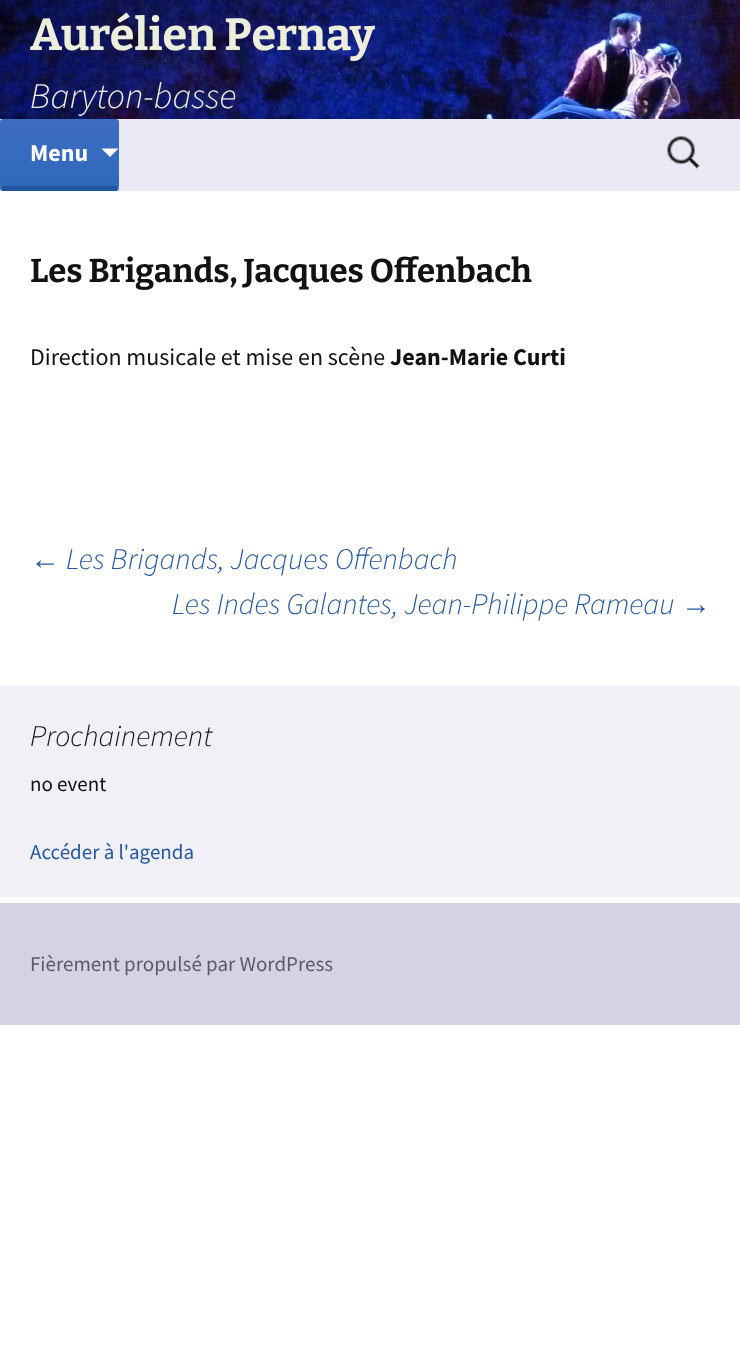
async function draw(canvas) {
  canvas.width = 740
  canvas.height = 1349
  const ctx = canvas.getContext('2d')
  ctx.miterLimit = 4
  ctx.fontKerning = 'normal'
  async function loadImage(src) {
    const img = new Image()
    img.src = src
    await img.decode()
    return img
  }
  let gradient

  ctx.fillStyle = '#fff'
  ctx.fillRect(0, 0, 740, 1349)
  ctx.drawImage(await loadImage('image0.png'), 0, 0, 740, 119)
  ctx.font = '100 45px Bitter'
  ctx.fillStyle = '#ededdc'
  ctx.fillText('Aurélien Pernay', 30, 50)
  ctx.font = 'italic 300 36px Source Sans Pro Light'
  ctx.fillText('Baryton-basse', 30, 108)
  ctx.fillStyle = '#ebe9f4'
  ctx.fillRect(0, 119, 740, 72)
  gradient = ctx.createLinearGradient(59, 119, 59, 186)
  gradient.addColorStop(0, '#3e6ec4')
  gradient.addColorStop(1, '#2f69bb')
  ctx.fillStyle = gradient
  ctx.beginPath()
  ctx.roundRect(0, 119, 119, 67, [3, 3, 0, 0])
  ctx.fill()
  gradient = ctx.createLinearGradient(59, 186, 59, 254)
  gradient.addColorStop(0, '#3e6ec4')
  gradient.addColorStop(1, '#2f69bb')
  ctx.fillStyle = gradient
  ctx.beginPath()
  ctx.roundRect(0, 186, 119, 5, [0, 0, 3, 3])
  ctx.fill()
  ctx.fillStyle = '#21569e'
  ctx.fillRect(2, 186, 115, 5)
  ctx.font = 'bold 24px Source Sans Pro'
  ctx.fillStyle = '#fff'
  ctx.fillText('Menu', 30, 161)
  ctx.beginPath()
  ctx.moveTo(101.5, 148.5)
  ctx.lineTo(110, 157)
  ctx.lineTo(118.5, 148.5)
  ctx.closePath()
  ctx.fill()
  ctx.drawImage(await loadImage('image1.png'), 667, 136, 33, 33)
  ctx.font = '100 33px Bitter'
  ctx.fillStyle = '#121213'
  ctx.fillText('Les Brigands, Jacques Offenbach', 30, 282)
  ctx.font = '24px Source Sans Pro'
  ctx.fillText('Direction musicale et mise en scène', 30, 365)
  ctx.font = 'bold 24px Source Sans Pro'
  ctx.fillText('Jean-Marie Curti', 390, 365)
  ctx.font = 'italic 30px Liberation Sans'
  ctx.fillStyle = '#2458a1'
  ctx.fillText('←', 30, 569)
  ctx.font = 'italic 300 30px Source Sans Pro Light'
  ctx.fillText('Les Brigands, Jacques Offenbach', 66, 569)
  ctx.fillText('Les Indes Galantes, Jean-Philippe Rameau', 172, 614)
  ctx.font = 'italic 30px Liberation Sans'
  ctx.fillText('→', 681, 614)
  ctx.fillStyle = '#f1f0f7'
  ctx.fillRect(0, 686, 740, 211)
  ctx.font = 'italic 300 30px Source Sans Pro Light'
  ctx.fillStyle = '#121213'
  ctx.fillText('Prochainement', 30, 746)
  ctx.font = '21px Source Sans Pro'
  ctx.fillText('no event', 30, 791)
  ctx.fillStyle = '#2458a1'
  ctx.fillText('Accéder à l\'agenda', 30, 859)
  ctx.fillStyle = '#d6d2e4'
  ctx.fillRect(0, 903, 740, 122)
  ctx.fillStyle = '#5d5a65'
  ctx.fillText('Fièrement propulsé par WordPress', 30, 971)
}

draw(document.querySelector('canvas'))
